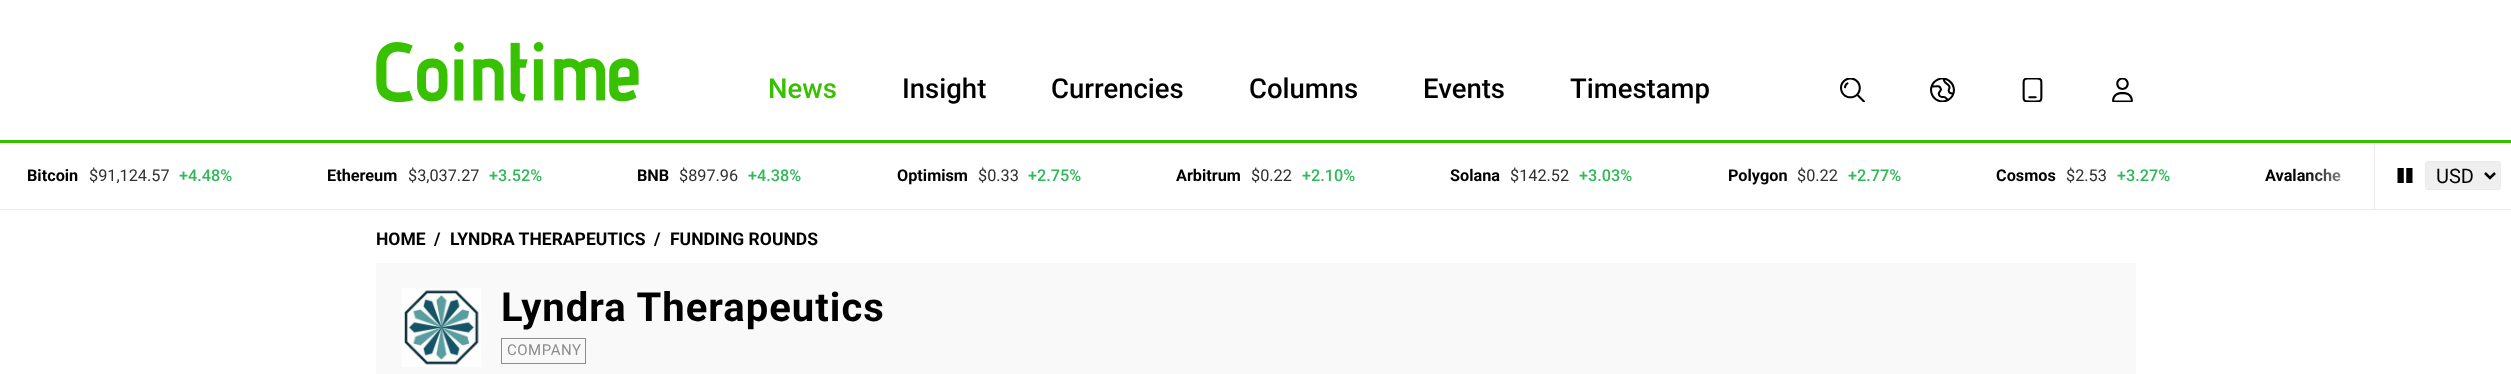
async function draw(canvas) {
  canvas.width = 2511
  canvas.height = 374
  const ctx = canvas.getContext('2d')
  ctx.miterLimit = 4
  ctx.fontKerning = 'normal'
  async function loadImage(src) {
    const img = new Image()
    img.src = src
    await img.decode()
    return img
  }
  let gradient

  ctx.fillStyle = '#fff'
  ctx.fillRect(0, 0, 2511, 374)
  ctx.drawImage(await loadImage('image0.png'), 376, 42, 263, 61)
  ctx.font = '500 27.5px Roboto'
  ctx.fillStyle = '#38c100'
  ctx.fillText('News', 768, 98)
  ctx.fillStyle = '#000'
  ctx.fillText('Insight', 902, 98)
  ctx.fillText('Currencies', 1051, 98)
  ctx.fillText('Columns', 1249, 98)
  ctx.fillText('Events', 1423, 98)
  ctx.fillText('Timestamp', 1570, 98)
  ctx.drawImage(await loadImage('image1.png'), 1840, 78, 25, 25)
  ctx.drawImage(await loadImage('image2.png'), 1930, 78, 25, 25)
  ctx.drawImage(await loadImage('image3.png'), 2022, 78, 21, 25)
  ctx.drawImage(await loadImage('image4.png'), 2112, 78, 21, 25)
  ctx.fillStyle = '#38c100'
  ctx.fillRect(0, 140, 2511, 3)
  ctx.fillStyle = '#eaeaea'
  ctx.fillRect(0, 209, 2511, 1)
  ctx.font = 'bold 16.25px Roboto'
  ctx.fillStyle = '#000'
  ctx.fillText('Bitcoin', 27, 181)
  ctx.font = '16.25px Roboto'
  ctx.fillStyle = '#2d2f30'
  ctx.fillText('$91,124.57', 89, 181)
  ctx.font = '500 16.25px Roboto'
  ctx.fillStyle = '#30b958'
  ctx.fillText('+4.48%', 179, 181)
  ctx.font = 'bold 16.25px Roboto'
  ctx.fillStyle = '#000'
  ctx.fillText('Ethereum', 327, 181)
  ctx.font = '16.25px Roboto'
  ctx.fillStyle = '#2d2f30'
  ctx.fillText('$3,037.27', 408, 181)
  ctx.font = '500 16.25px Roboto'
  ctx.fillStyle = '#30b958'
  ctx.fillText('+3.52%', 489, 181)
  ctx.font = 'bold 16.25px Roboto'
  ctx.fillStyle = '#000'
  ctx.fillText('BNB', 637, 181)
  ctx.font = '16.25px Roboto'
  ctx.fillStyle = '#2d2f30'
  ctx.fillText('$897.96', 679, 181)
  ctx.font = '500 16.25px Roboto'
  ctx.fillStyle = '#30b958'
  ctx.fillText('+4.38%', 748, 181)
  ctx.font = 'bold 16.25px Roboto'
  ctx.fillStyle = '#000'
  ctx.fillText('Optimism', 897, 181)
  ctx.font = '16.25px Roboto'
  ctx.fillStyle = '#2d2f30'
  ctx.fillText('$0.33', 978, 181)
  ctx.font = '500 16.25px Roboto'
  ctx.fillStyle = '#30b958'
  ctx.fillText('+2.75%', 1028, 181)
  ctx.font = 'bold 16.25px Roboto'
  ctx.fillStyle = '#000'
  ctx.fillText('Arbitrum', 1176, 181)
  ctx.font = '16.25px Roboto'
  ctx.fillStyle = '#2d2f30'
  ctx.fillText('$0.22', 1251, 181)
  ctx.font = '500 16.25px Roboto'
  ctx.fillStyle = '#30b958'
  ctx.fillText('+2.10%', 1302, 181)
  ctx.font = 'bold 16.25px Roboto'
  ctx.fillStyle = '#000'
  ctx.fillText('Solana', 1450, 181)
  ctx.font = '16.25px Roboto'
  ctx.fillStyle = '#2d2f30'
  ctx.fillText('$142.52', 1510, 181)
  ctx.font = '500 16.25px Roboto'
  ctx.fillStyle = '#30b958'
  ctx.fillText('+3.03%', 1579, 181)
  ctx.font = 'bold 16.25px Roboto'
  ctx.fillStyle = '#000'
  ctx.fillText('Polygon', 1728, 181)
  ctx.font = '16.25px Roboto'
  ctx.fillStyle = '#2d2f30'
  ctx.fillText('$0.22', 1797, 181)
  ctx.font = '500 16.25px Roboto'
  ctx.fillStyle = '#30b958'
  ctx.fillText('+2.77%', 1848, 181)
  ctx.font = 'bold 16.25px Roboto'
  ctx.fillStyle = '#000'
  ctx.fillText('Cosmos', 1996, 181)
  ctx.font = '16.25px Roboto'
  ctx.fillStyle = '#2d2f30'
  ctx.fillText('$2.53', 2066, 181)
  ctx.font = '500 16.25px Roboto'
  ctx.fillStyle = '#30b958'
  ctx.fillText('+3.27%', 2117, 181)
  ctx.font = 'bold 16.25px Roboto'
  ctx.fillStyle = '#000'
  ctx.fillText('Avalanche', 2265, 181)
  gradient = ctx.createLinearGradient(2374, 176, 2304, 176)
  gradient.addColorStop(0, '#fff')
  gradient.addColorStop(1, '#ffffff00')
  ctx.fillStyle = gradient
  ctx.fillRect(2306, 168, 35, 14)
  ctx.fillStyle = '#eaeaea'
  ctx.fillRect(2374, 143, 1, 66)
  ctx.drawImage(await loadImage('image5.png'), 2397, 168, 16, 15)
  ctx.fillStyle = '#efefef'
  ctx.beginPath()
  ctx.roundRect(2425.5, 161.5, 75, 28, 2)
  ctx.fill()
  ctx.strokeStyle = '#eaeaea'
  ctx.stroke()
  ctx.beginPath()
  ctx.moveTo(2485, 173)
  ctx.lineTo(2490, 178)
  ctx.lineTo(2495, 173)
  ctx.strokeStyle = '#000'
  ctx.lineWidth = 2.5
  ctx.stroke()
  ctx.font = '20px Roboto'
  ctx.fillStyle = '#000'
  ctx.fillText('USD', 2436, 183)
  ctx.font = 'bold 17.5px Roboto'
  ctx.fillText('HOME', 376, 245)
  ctx.fillText('/', 434, 245)
  ctx.fillText('LYNDRA THERAPEUTICS', 450, 245)
  ctx.fillText('/', 654, 245)
  ctx.fillText('FUNDING ROUNDS', 670, 245)
  ctx.fillStyle = '#f9f9f9'
  ctx.fillRect(376, 263, 1760, 111)
  ctx.drawImage(await loadImage('image6.png'), 401, 288, 80, 79)
  ctx.letterSpacing = '1px'
  ctx.font = 'bold 40px Roboto'
  ctx.fillStyle = '#000'
  ctx.fillText('Lyndra Therapeutics', 501, 321)
  ctx.strokeStyle = '#8b8c8c'
  ctx.lineWidth = 1
  ctx.strokeRect(501.5, 338.5, 84, 25)
  ctx.letterSpacing = '0.5px'
  ctx.font = '15px Roboto'
  ctx.fillStyle = '#8b8c8c'
  ctx.fillText('COMPANY', 507, 355)
}

draw(document.querySelector('canvas'))
